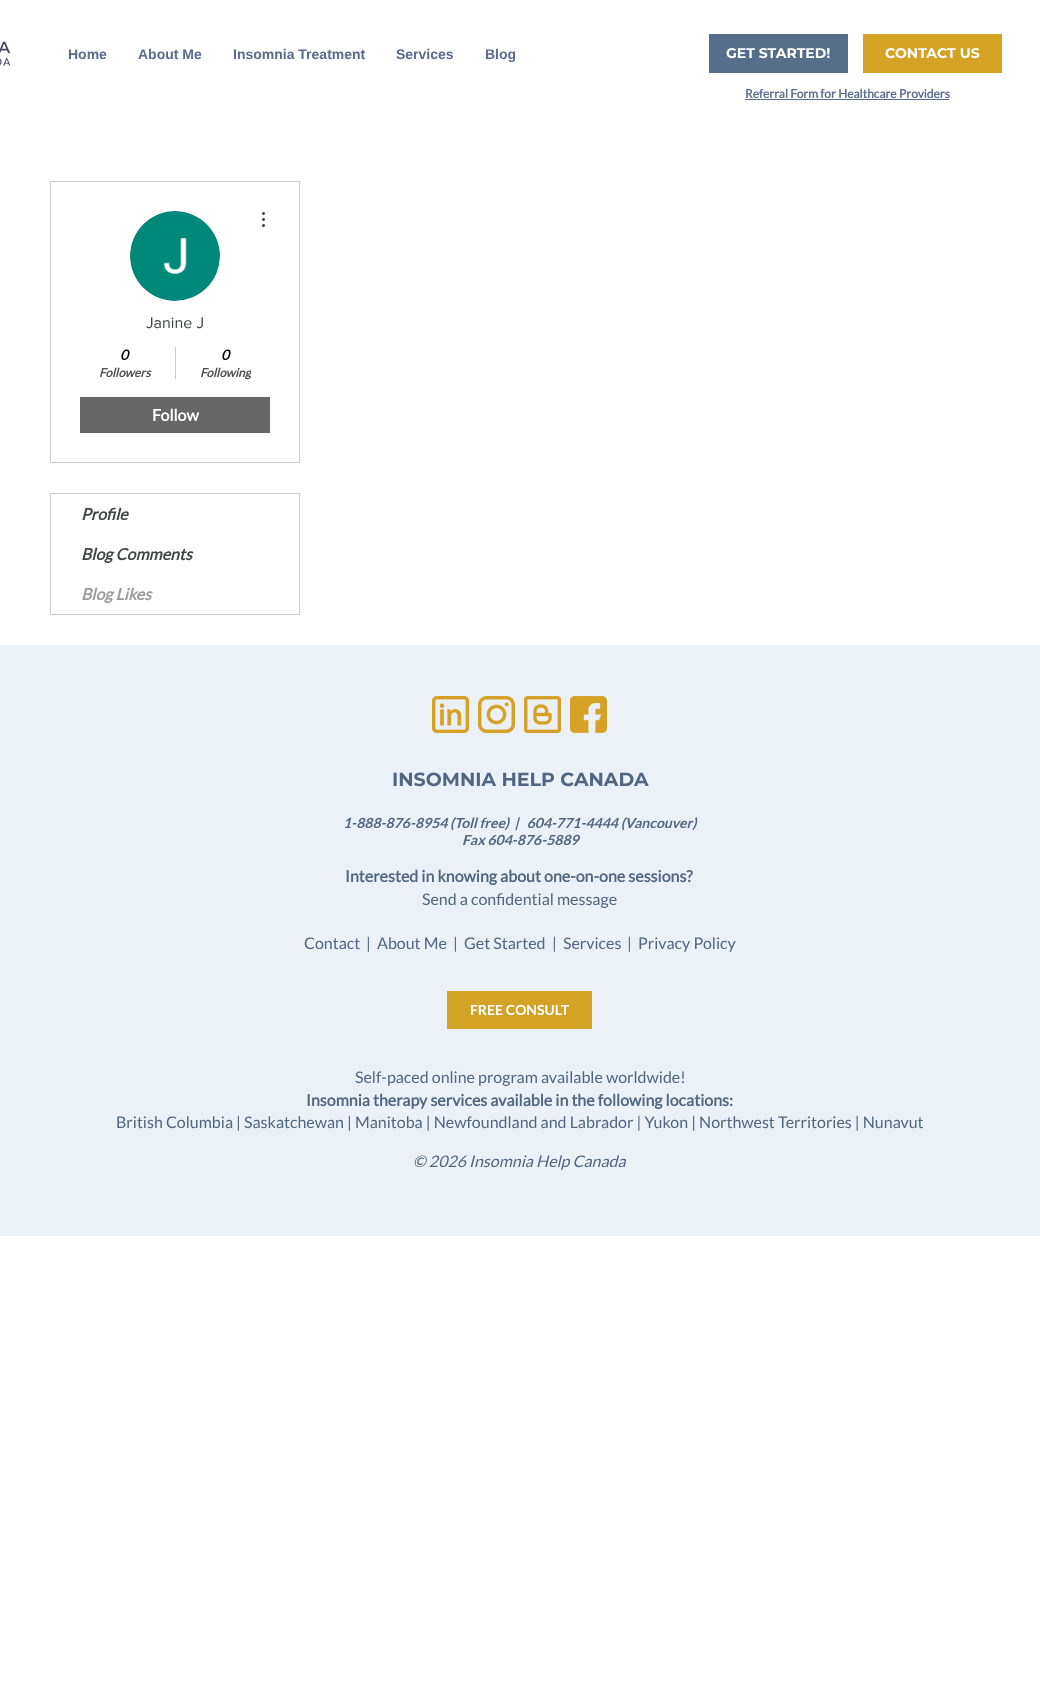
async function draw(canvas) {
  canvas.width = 1040
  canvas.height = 1698
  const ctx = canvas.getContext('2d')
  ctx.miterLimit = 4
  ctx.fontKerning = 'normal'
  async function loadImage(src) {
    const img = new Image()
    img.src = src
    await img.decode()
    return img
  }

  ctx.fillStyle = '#fff'
  ctx.fillRect(0, 0, 1040, 1698)
  ctx.drawImage(await loadImage('image0.png'), 0, 41, 11, 25)
  ctx.font = 'bold 14px Liberation Sans'
  ctx.fillStyle = '#5a6b8d'
  ctx.fillText('Home', 68, 59)
  ctx.fillText('About Me', 138, 59)
  ctx.fillText('Insomnia Treatment', 233, 59)
  ctx.fillText('Services', 396, 59)
  ctx.fillText('Blog', 485, 59)
  ctx.fillStyle = '#576e8a'
  ctx.fillRect(709, 34, 139, 39)
  ctx.font = 'bold 14px Montserrat'
  ctx.fillStyle = '#fff'
  ctx.fillText('GET STARTED!', 726, 58)
  ctx.fillStyle = '#d4a325'
  ctx.fillRect(863, 34, 139, 39)
  ctx.fillStyle = '#fff'
  ctx.fillText('CONTACT US', 885, 58)
  ctx.font = 'bold 12px Lato'
  ctx.fillStyle = '#5a6b8d'
  ctx.fillText('Referral Form for Healthcare Providers', 745, 98)
  ctx.fillStyle = '#5a6c8c'
  ctx.fillRect(745, 99, 204, 1)
  ctx.strokeStyle = '#ccc'
  ctx.strokeRect(50.5, 181.5, 249, 281)
  ctx.fillStyle = '#d8d8d8'
  ctx.beginPath()
  ctx.arc(175, 256, 45, 0, 2 * Math.PI)
  ctx.fill()
  ctx.drawImage(await loadImage('image1.png'), 130, 211, 90, 90)
  ctx.drawImage(await loadImage('image2.png'), 262, 212, 3, 15)
  ctx.font = '16px "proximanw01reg"'
  ctx.fillStyle = '#404545'
  ctx.fillText('Janine J', 146, 328)
  ctx.font = 'italic bold 14px Lato'
  ctx.fillStyle = '#000'
  ctx.fillText('0', 120, 360)
  ctx.font = 'italic bold 12px Lato'
  ctx.fillStyle = '#4d4d4d'
  ctx.fillText('Followers', 99, 377)
  ctx.fillStyle = '#ccc'
  ctx.fillRect(175, 347, 1, 32)
  ctx.font = 'italic bold 14px Lato'
  ctx.fillStyle = '#000'
  ctx.fillText('0', 221, 360)
  ctx.save()
  ctx.beginPath()
  ctx.rect(200, 365, 51, 16)
  ctx.clip()
  ctx.font = 'italic bold 12px Lato'
  ctx.fillStyle = '#4d4d4d'
  ctx.fillText('Following', 200, 377)
  ctx.restore()
  ctx.fillStyle = '#666'
  ctx.fillRect(80, 397, 190, 36)
  ctx.font = 'bold 16px Lato'
  ctx.fillStyle = '#fff'
  ctx.fillText('Follow', 152, 421)
  ctx.strokeRect(50.5, 493.5, 249, 121)
  ctx.font = 'italic bold 16px Lato'
  ctx.fillStyle = '#404545'
  ctx.fillText('Profile', 81, 520)
  ctx.fillText('Blog Comments', 81, 560)
  ctx.fillStyle = '#999998'
  ctx.fillText('Blog Likes', 81, 600)
  ctx.fillStyle = '#ebf1f7'
  ctx.fillRect(0, 645, 1040, 591)
  ctx.drawImage(await loadImage('image3.png'), 432, 696, 37, 37)
  ctx.drawImage(await loadImage('image4.png'), 478, 696, 37, 37)
  ctx.drawImage(await loadImage('image5.png'), 524, 696, 37, 37)
  ctx.drawImage(await loadImage('image6.png'), 570, 696, 37, 37)
  ctx.font = 'bold 19px Montserrat'
  ctx.fillStyle = '#516683'
  ctx.fillText('INSOMNIA HELP CANADA', 392, 786)
  ctx.font = 'italic bold 14px "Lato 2"'
  ctx.fillText('1-888-876-8954 (Toll free)  |   604-771-4444 (Vancouver)', 343, 828)
  ctx.fillText('Fax 604-876-5889', 462, 845)
  ctx.font = 'bold 16px Lato'
  ctx.fillText('Interested in knowing about one-on-one sessions?', 345, 882)
  ctx.font = '16px Lato'
  ctx.fillText('Send a confidential message', 422, 905)
  ctx.fillText('Contact', 304, 949)
  ctx.fillText('|', 366, 949)
  ctx.fillText('About Me', 377, 949)
  ctx.fillText('|', 453, 949)
  ctx.fillText('Get Started', 464, 949)
  ctx.fillText('|', 552, 949)
  ctx.fillText('Services', 563, 949)
  ctx.fillText('|', 627, 949)
  ctx.fillText('Privacy Policy', 638, 949)
  ctx.fillStyle = '#d4a325'
  ctx.fillRect(447, 991, 145, 38)
  ctx.font = 'bold 14px "Lato 2"'
  ctx.fillStyle = '#fff'
  ctx.fillText('FREE CONSULT', 470, 1015)
  ctx.font = '16px Lato'
  ctx.fillStyle = '#516683'
  ctx.fillText('Self-paced online program available worldwide!', 355, 1083)
  ctx.font = 'bold 16px Lato'
  ctx.fillText('Insomnia therapy services available in the following locations:', 306, 1106)
  ctx.font = '16px Lato'
  ctx.fillText('British Columbia | Saskatchewan | Manitoba | Newfoundland and Labrador | Yukon | Northwest Territories | Nunavut', 116, 1128)
  ctx.font = 'italic 16px Lato'
  ctx.fillText('© 2026 Insomnia Help Canada', 413, 1167)
}

draw(document.querySelector('canvas'))
